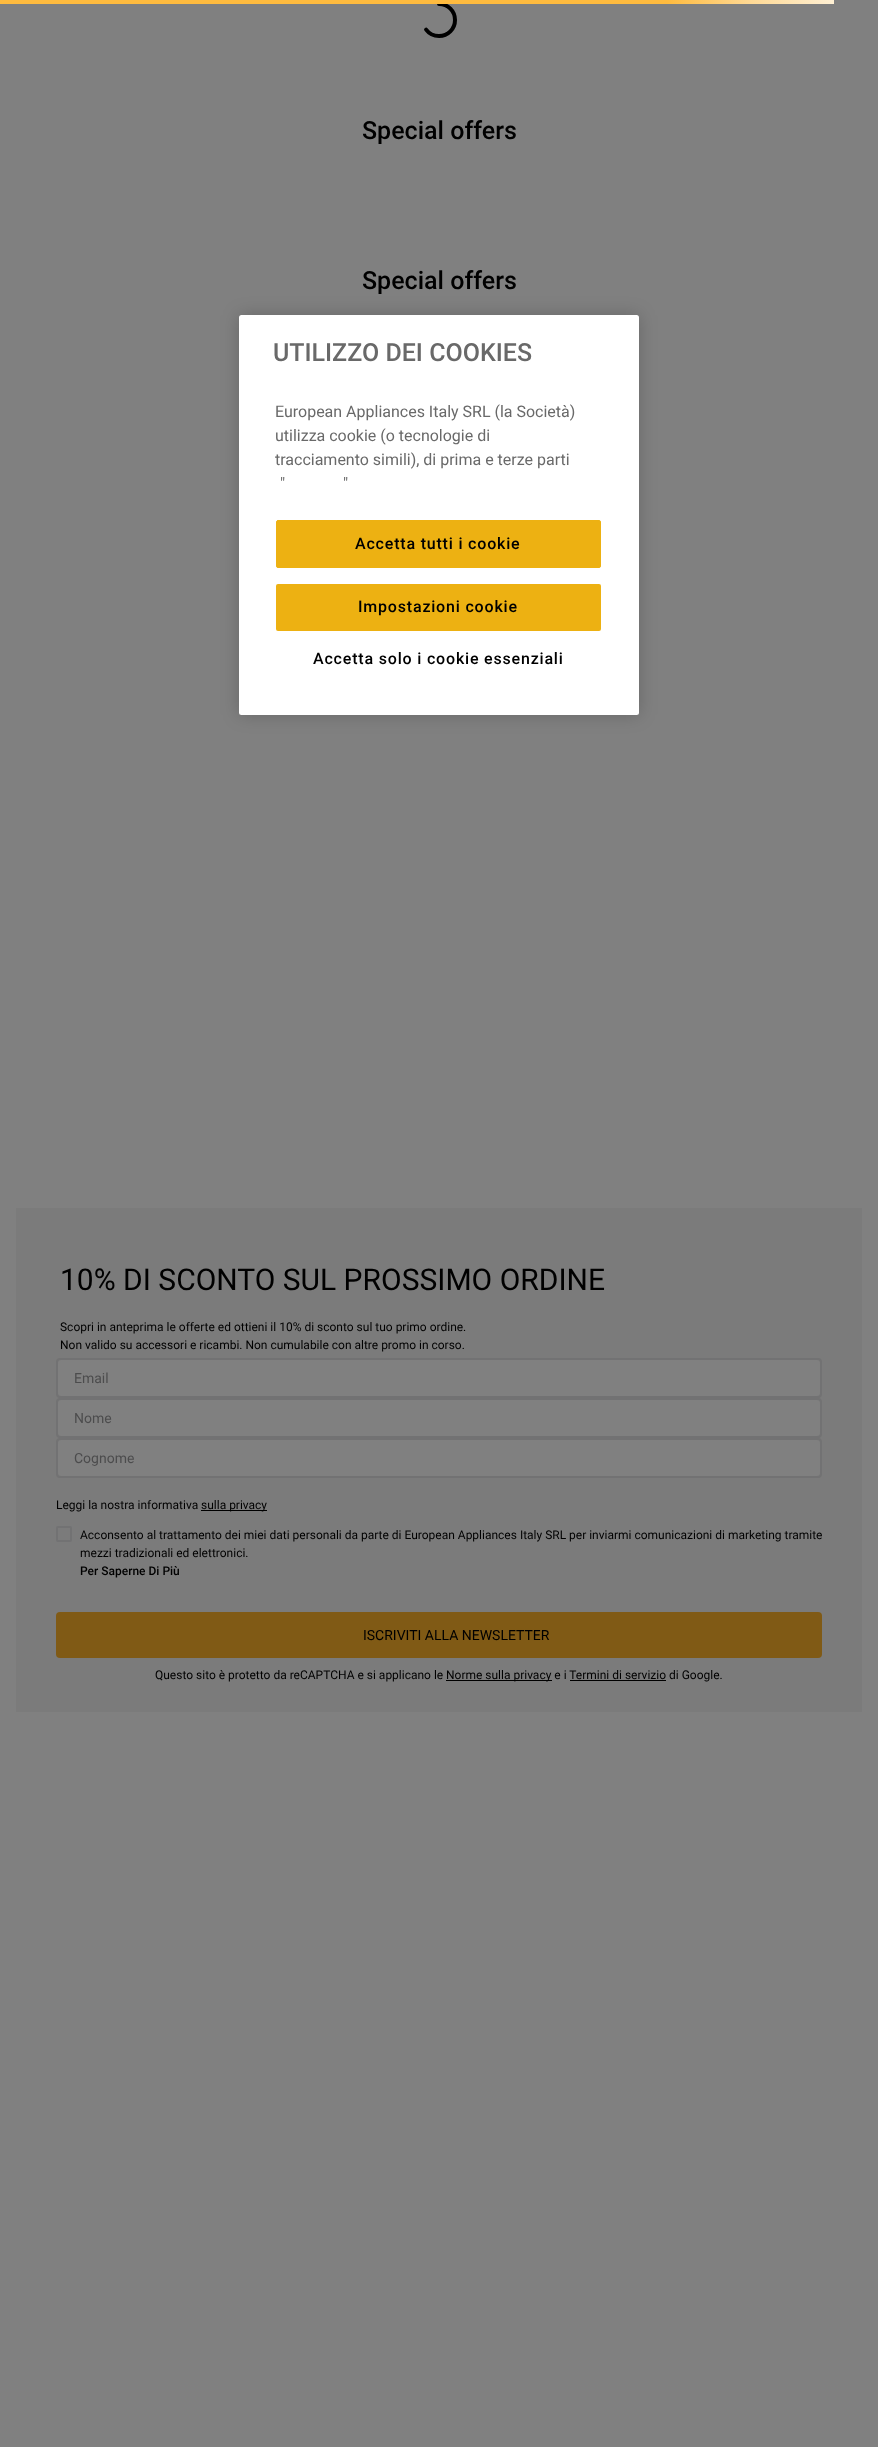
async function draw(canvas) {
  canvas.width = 878
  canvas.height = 2447
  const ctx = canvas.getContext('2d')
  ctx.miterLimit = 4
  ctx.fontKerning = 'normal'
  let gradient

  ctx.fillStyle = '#808080'
  ctx.fillRect(0, 0, 878, 2447)
  ctx.beginPath()
  ctx.moveTo(439, 4)
  ctx.bezierCurveTo(448, 4, 455, 11, 455, 20)
  ctx.bezierCurveTo(455, 29, 448, 36, 439, 36)
  ctx.bezierCurveTo(430, 36, 423, 29, 423, 20)
  ctx.bezierCurveTo(423, 11, 430, 4, 439, 4)
  ctx.closePath()
  ctx.strokeStyle = '#000'
  ctx.lineWidth = 4
  ctx.lineCap = 'round'
  ctx.setLineDash([0, 0, 65.35, 100.53])
  ctx.lineDashOffset = 0.4
  ctx.stroke()
  gradient = ctx.createLinearGradient(0, 2, 834, 2)
  gradient.addColorStop(0.8, '#ffbb3f')
  gradient.addColorStop(0.9, '#ffd995')
  gradient.addColorStop(1, '#fff0d4')
  ctx.fillStyle = gradient
  ctx.fillRect(0, 0, 834, 4)
  ctx.font = '500 25px Roboto'
  ctx.fillStyle = '#000'
  ctx.fillText('Special offers', 362, 139)
  ctx.fillText('Special offers', 362, 289)
  ctx.fillStyle = '#7b7b7b'
  ctx.fillRect(16, 1208, 846, 504)
  ctx.font = '30px Roboto'
  ctx.fillStyle = '#000'
  ctx.fillText('10% DI SCONTO SUL PROSSIMO ORDINE', 60, 1290)
  ctx.font = '12px Roboto'
  ctx.fillText('Scopri in anteprima le offerte ed ottieni il 10% di sconto sul tuo primo ordine.', 60, 1331)
  ctx.fillText('Non valido su accessori e ricambi. Non cumulabile con altre promo in corso.', 60, 1349)
  ctx.beginPath()
  ctx.roundRect(57, 1359, 764, 38, 3)
  ctx.strokeStyle = '#727273'
  ctx.lineWidth = 2
  ctx.setLineDash([])
  ctx.stroke()
  ctx.fillStyle = '#808080'
  ctx.beginPath()
  ctx.roundRect(58, 1360, 762, 36, 4)
  ctx.fill()
  ctx.font = '14px Roboto'
  ctx.fillStyle = '#4c4c4d'
  ctx.fillText('Email', 74, 1383)
  ctx.beginPath()
  ctx.roundRect(57, 1399, 764, 38, 3)
  ctx.stroke()
  ctx.fillStyle = '#808080'
  ctx.beginPath()
  ctx.roundRect(58, 1400, 762, 36, 4)
  ctx.fill()
  ctx.fillStyle = '#4c4c4d'
  ctx.fillText('Nome', 74, 1423)
  ctx.beginPath()
  ctx.roundRect(57, 1439, 764, 38, 3)
  ctx.stroke()
  ctx.fillStyle = '#808080'
  ctx.beginPath()
  ctx.roundRect(58, 1440, 762, 36, 4)
  ctx.fill()
  ctx.fillStyle = '#4c4c4d'
  ctx.fillText('Cognome', 74, 1463)
  ctx.font = '12px Roboto'
  ctx.fillStyle = '#000'
  ctx.fillText('Leggi la nostra informativa', 56, 1509)
  ctx.fillRect(201, 1510, 66, 1)
  ctx.fillText('sulla privacy', 201, 1509)
  ctx.beginPath()
  ctx.roundRect(57, 1527, 14, 14, 1)
  ctx.stroke()
  ctx.fillText('Acconsento al trattamento dei miei dati personali da parte di European Appliances Italy SRL per inviarmi comunicazioni di marketing tramite', 80, 1539)
  ctx.fillText('mezzi tradizionali ed elettronici.', 80, 1557)
  ctx.font = '500 12px Roboto'
  ctx.fillText('Per Saperne Di Più', 80, 1575)
  ctx.fillStyle = '#805a15'
  ctx.beginPath()
  ctx.roundRect(56, 1612, 766, 46, 4)
  ctx.fill()
  ctx.font = '14px Roboto'
  ctx.fillStyle = '#000'
  ctx.fillText('ISCRIVITI ALLA NEWSLETTER', 363, 1640)
  ctx.font = '12px Roboto'
  ctx.fillText('Questo sito è protetto da reCAPTCHA e si applicano le', 155, 1679)
  ctx.fillRect(446, 1680, 106, 1)
  ctx.fillText('Norme sulla privacy e i Termini di servizio di Google.', 446, 1679)
  ctx.fillRect(570, 1680, 96, 1)
  ctx.fillStyle = '#00000033'
  ctx.filter = 'blur(9px)'
  ctx.beginPath()
  ctx.roundRect(239, 315, 400, 400, 2.5)
  ctx.fill()
  ctx.filter = 'none'
  ctx.fillStyle = '#fff'
  ctx.beginPath()
  ctx.roundRect(239, 315, 400, 400, 2.5)
  ctx.fill()
  ctx.font = '500 25px Roboto'
  ctx.fillStyle = '#696969'
  ctx.fillText('UTILIZZO DEI COOKIES', 273, 361)
  ctx.font = '16px Roboto'
  ctx.fillText('European Appliances Italy SRL (la Società)', 275, 417)
  ctx.fillText('utilizza cookie (o tecnologie di', 275, 441)
  ctx.fillText('tracciamento simili), di prima e terze parti', 275, 465)
  ctx.fillText('"', 280, 489)
  ctx.fillText('"', 343, 489)
  ctx.fillStyle = '#edb112'
  ctx.beginPath()
  ctx.roundRect(276.5, 520.5, 324, 47, 1.5)
  ctx.fill()
  ctx.strokeStyle = '#edb112'
  ctx.lineWidth = 1
  ctx.stroke()
  ctx.letterSpacing = '0.8px'
  ctx.font = '500 16px Roboto'
  ctx.fillStyle = '#000'
  ctx.fillText('Accetta tutti i cookie', 355, 549)
  ctx.fillStyle = '#edb112'
  ctx.beginPath()
  ctx.roundRect(276, 584, 325, 47, 2)
  ctx.fill()
  ctx.fillStyle = '#000'
  ctx.fillText('Impostazioni cookie', 358, 612)
  ctx.fillText('Accetta solo i cookie essenziali', 313, 664)
}

draw(document.querySelector('canvas'))
